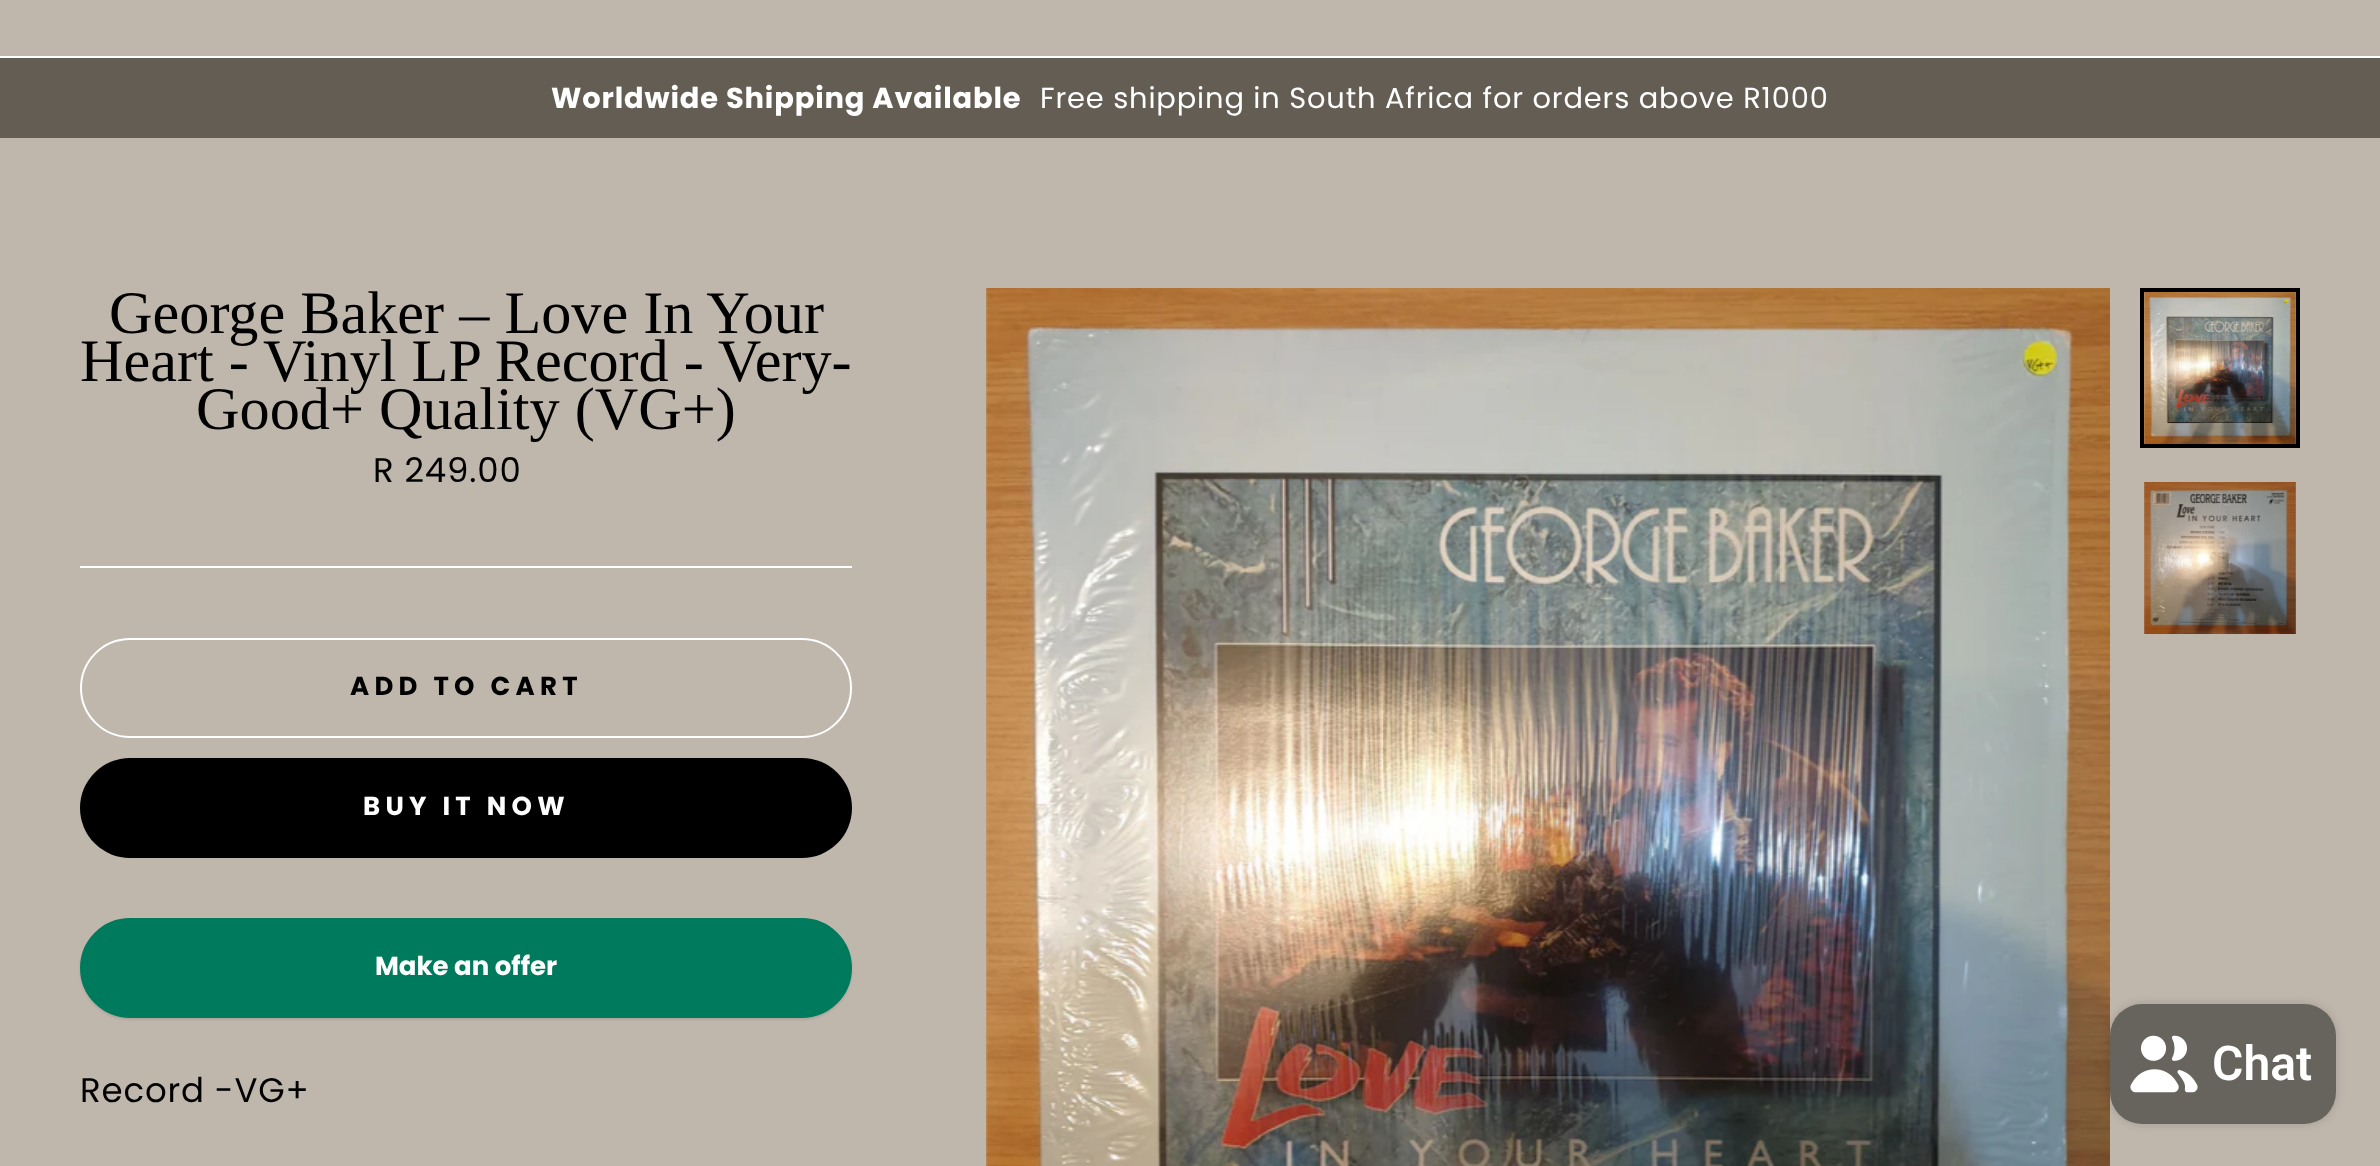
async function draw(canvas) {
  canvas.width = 2380
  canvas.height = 1166
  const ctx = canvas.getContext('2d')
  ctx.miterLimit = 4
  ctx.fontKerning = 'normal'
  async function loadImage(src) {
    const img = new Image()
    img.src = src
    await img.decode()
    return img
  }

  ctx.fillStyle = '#bfb6ac'
  ctx.fillRect(0, 0, 2380, 1166)
  ctx.fillStyle = '#fff'
  ctx.fillRect(0, 56, 2380, 2)
  ctx.fillStyle = '#635d54'
  ctx.fillRect(0, 58, 2380, 80)
  ctx.letterSpacing = '0.85px'
  ctx.font = 'bold 28.9px Poppins'
  ctx.fillStyle = '#fff'
  ctx.fillText('Worldwide Shipping Available', 551, 108)
  ctx.font = '28.9px Poppins'
  ctx.fillText('Free shipping in South Africa for orders above R1000', 1040, 108)
  ctx.letterSpacing = '0px'
  ctx.font = '60.25px Liberation Serif'
  ctx.fillStyle = '#000'
  ctx.fillText('George Baker – Love In Your', 109, 333)
  ctx.fillText('Heart - Vinyl LP Record - Very-', 80, 381)
  ctx.fillText('Good+ Quality (VG+)', 196, 429)
  ctx.letterSpacing = '0.85px'
  ctx.font = '34px Poppins'
  ctx.fillText('R 249.00', 373, 482)
  ctx.fillStyle = '#fff'
  ctx.fillRect(80, 566, 772, 2)
  ctx.beginPath()
  ctx.roundRect(81, 639, 770, 98, 49)
  ctx.strokeStyle = '#fff'
  ctx.lineWidth = 2
  ctx.stroke()
  ctx.letterSpacing = '5.25px'
  ctx.font = 'bold 26px Poppins'
  ctx.fillStyle = '#000'
  ctx.fillText('ADD TO CART', 350, 695)
  ctx.beginPath()
  ctx.roundRect(80, 758, 772, 100, 50)
  ctx.fill()
  ctx.fillStyle = '#fff'
  ctx.fillText('BUY IT NOW', 363, 815)
  ctx.fillStyle = '#1f21241a'
  ctx.filter = 'blur(1px)'
  ctx.beginPath()
  ctx.roundRect(80, 920, 772, 100, 50)
  ctx.fill()
  ctx.filter = 'none'
  ctx.fillStyle = '#007a5c'
  ctx.beginPath()
  ctx.roundRect(81, 919, 770, 98, 49)
  ctx.fill()
  ctx.strokeStyle = '#007a5c'
  ctx.stroke()
  ctx.letterSpacing = '0px'
  ctx.fillStyle = '#fff'
  ctx.fillText('Make an offer', 375, 975)
  ctx.letterSpacing = '0.85px'
  ctx.font = '34px Poppins'
  ctx.fillStyle = '#000'
  ctx.fillText('Record -VG+', 80, 1102)
  ctx.drawImage(await loadImage('image0.png'), 986, 288, 1124, 878)
  ctx.strokeStyle = '#000'
  ctx.lineWidth = 4
  ctx.strokeRect(2142, 290, 156, 156)
  ctx.drawImage(await loadImage('image1.png'), 2144, 292, 152, 152)
  ctx.drawImage(await loadImage('image2.png'), 2144, 482, 152, 152)
  ctx.fillStyle = '#00000026'
  ctx.filter = 'blur(5px)'
  ctx.beginPath()
  ctx.roundRect(2110, 1004, 226, 120, 32)
  ctx.fill()
  ctx.filter = 'none'
  ctx.fillStyle = '#67635d'
  ctx.beginPath()
  ctx.roundRect(2110, 1004, 226, 120, 32)
  ctx.fill()
  ctx.drawImage(await loadImage('image3.png'), 2130, 1035, 68, 58)
  ctx.letterSpacing = '0px'
  ctx.font = '600 48px Roboto'
  ctx.fillStyle = '#fff'
  ctx.fillText('Chat', 2212, 1080)
}

draw(document.querySelector('canvas'))
